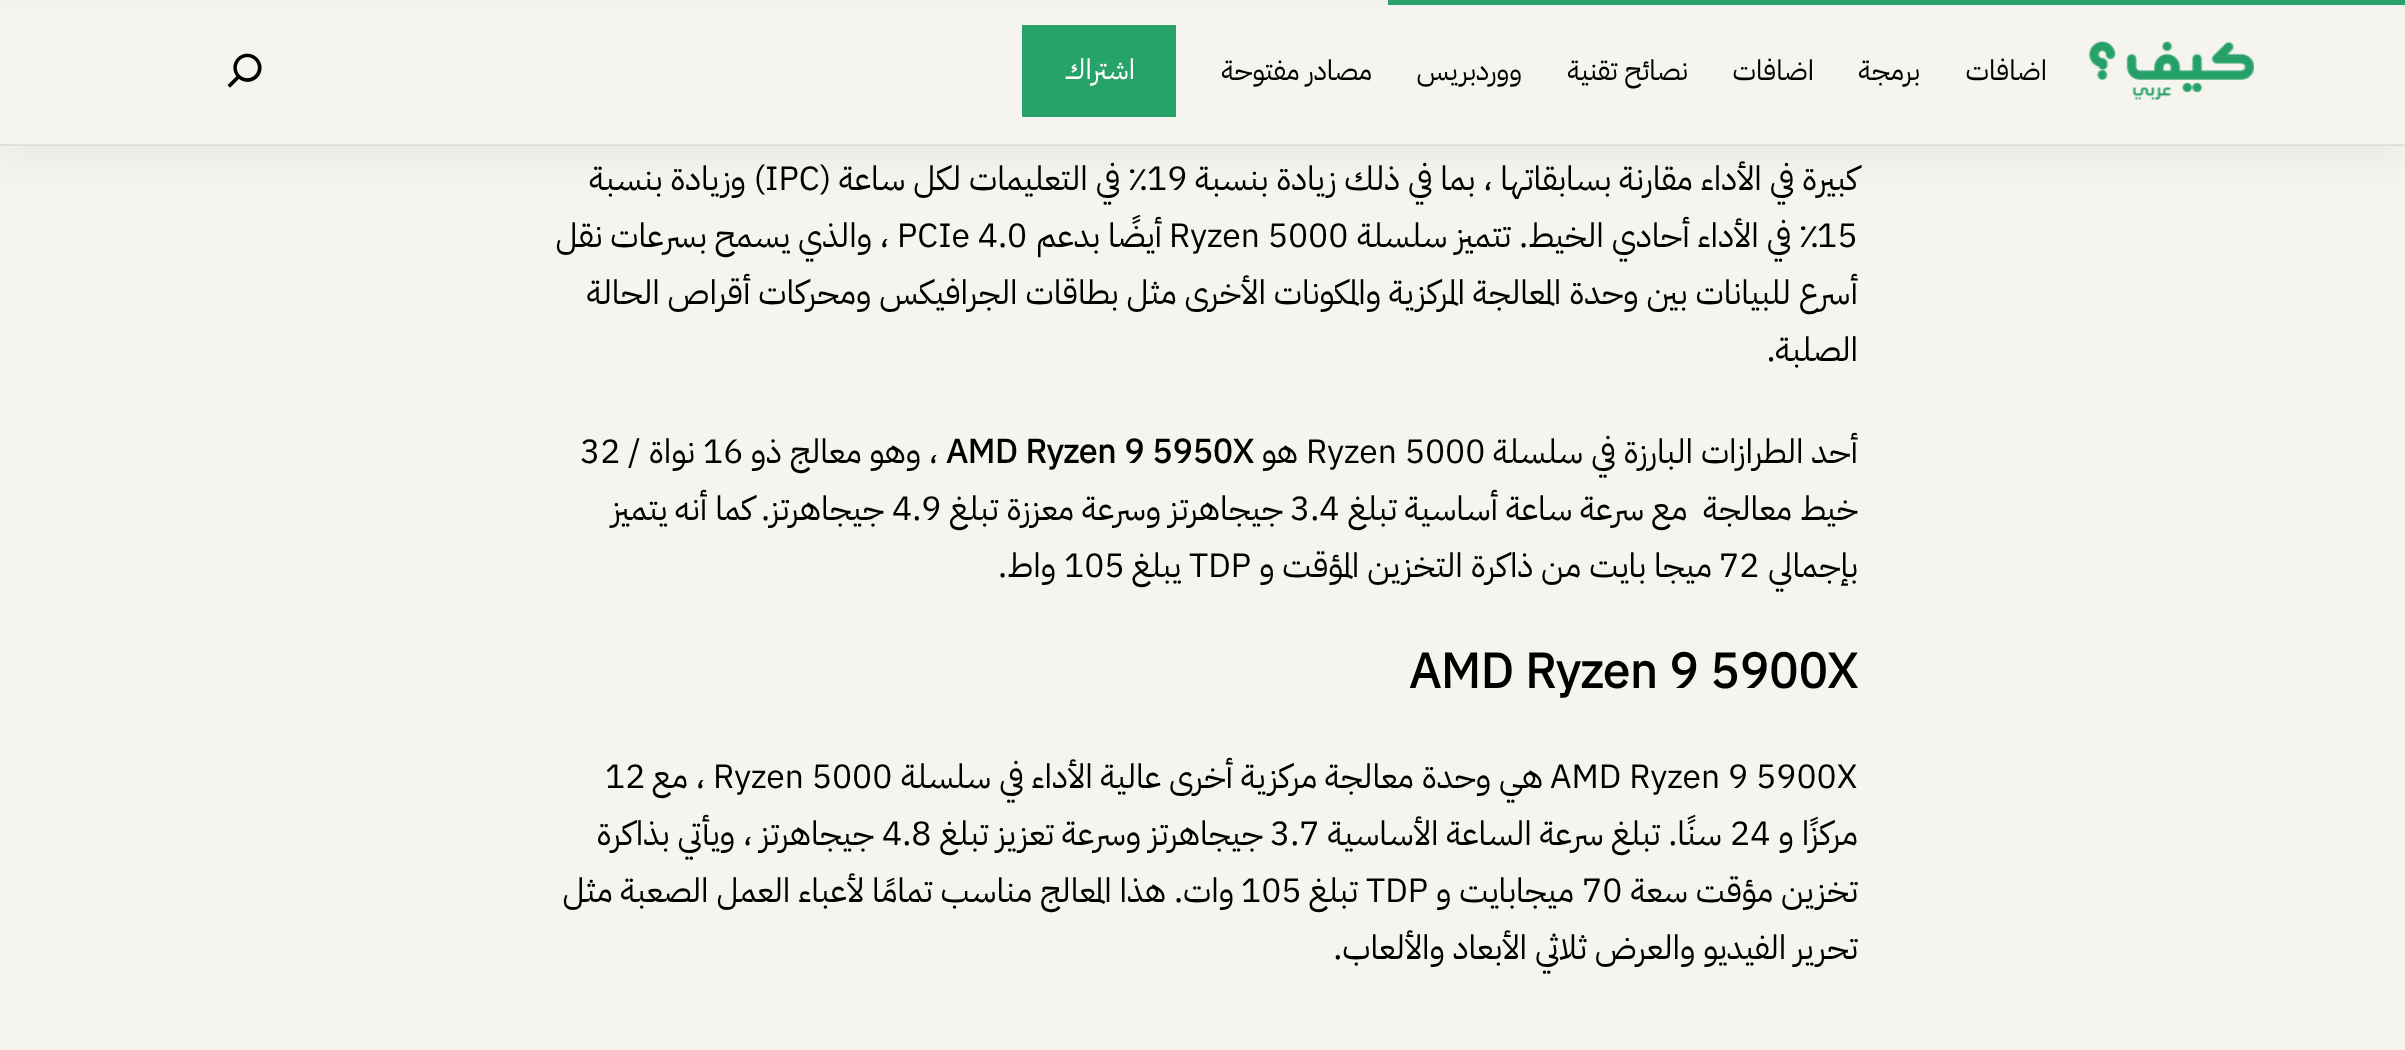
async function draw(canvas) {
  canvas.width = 2405
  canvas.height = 1050
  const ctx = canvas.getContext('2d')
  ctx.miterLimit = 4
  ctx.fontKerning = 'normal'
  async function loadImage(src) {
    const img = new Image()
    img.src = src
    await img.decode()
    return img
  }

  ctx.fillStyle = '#f6f4ee'
  ctx.fillRect(0, 0, 2405, 1050)
  ctx.fillStyle = '#2c3e500d'
  ctx.filter = 'blur(17.5px)'
  ctx.beginPath()
  ctx.rect(0, 18, 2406, 145)
  ctx.fill()
  ctx.filter = 'none'
  ctx.fillStyle = '#27a269'
  ctx.fillRect(1388, 0, 1017, 5)
  ctx.fillStyle = '#f6f4ee'
  ctx.fillRect(0, 7, 2405, 138)
  ctx.fillStyle = '#00000012'
  ctx.fillRect(0, 144, 2405, 2)
  ctx.drawImage(await loadImage('image0.png'), 2088, 41, 166, 59)
  ctx.direction = 'rtl'
  ctx.font = '28px IBM Plex Sans Arabic'
  ctx.fillStyle = '#000001'
  ctx.fillText('اضافات', 2047, 80)
  ctx.fillText('برمجة', 1920, 80)
  ctx.fillText('اضافات', 1814, 80)
  ctx.fillText('نصائح تقنية', 1688, 80)
  ctx.fillText('ووردبريس', 1522, 80)
  ctx.fillText('مصادر مفتوحة', 1372, 80)
  ctx.fillStyle = '#27a269'
  ctx.fillRect(1022, 25, 154, 92)
  ctx.fillStyle = '#fffffd'
  ctx.fillText('اشتراك', 1135, 79)
  ctx.drawImage(await loadImage('image1.png'), 227, 53, 35, 35)
  ctx.font = '33.6px IBM Plex Sans Arabic'
  ctx.fillStyle = '#000001'
  ctx.fillText('كبيرة في الأداء مقارنة بسابقاتها ، بما في ذلك زيادة بنسبة', 1858, 190)
  ctx.direction = 'ltr'
  ctx.fillText('19', 1147, 190)
  ctx.direction = 'rtl'
  ctx.fillText('٪ في التعليمات لكل ساعة (', 1147, 190)
  ctx.direction = 'ltr'
  ctx.fillText('IPC', 765, 190)
  ctx.direction = 'rtl'
  ctx.fillText(') وزيادة بنسبة', 765, 190)
  ctx.direction = 'ltr'
  ctx.fillText('15', 1817, 247)
  ctx.direction = 'rtl'
  ctx.fillText('٪ في الأداء أحادي الخيط. تتميز سلسلة', 1818, 247)
  ctx.direction = 'ltr'
  ctx.fillText('Ryzen 5000', 1169, 247)
  ctx.direction = 'rtl'
  ctx.fillText('أيضًا بدعم', 1162, 247)
  ctx.direction = 'ltr'
  ctx.fillText('PCIe 4.0', 897, 247)
  ctx.direction = 'rtl'
  ctx.fillText('، والذي يسمح بسرعات نقل', 889, 247)
  ctx.fillText('أسرع للبيانات بين وحدة المعالجة المركزية والمكونات الأخرى مثل بطاقات الجرافيكس ومحركات أقراص الحالة', 1858, 304)
  ctx.fillText('الصلبة.', 1858, 361)
  ctx.fillText('أحد الطرازات البارزة في سلسلة', 1858, 463)
  ctx.direction = 'ltr'
  ctx.fillText('Ryzen 5000', 1306, 463)
  ctx.direction = 'rtl'
  ctx.fillText('هو', 1298, 463)
  ctx.direction = 'ltr'
  ctx.font = 'bold 33.6px IBM Plex Sans Arabic'
  ctx.fillText('AMD Ryzen 9 5950X', 946, 463)
  ctx.direction = 'rtl'
  ctx.font = '33.6px IBM Plex Sans Arabic'
  ctx.fillText('، وهو معالج ذو', 938, 463)
  ctx.direction = 'ltr'
  ctx.fillText('16', 703, 463)
  ctx.direction = 'rtl'
  ctx.fillText('نواة /', 695, 463)
  ctx.direction = 'ltr'
  ctx.fillText('32', 580, 463)
  ctx.direction = 'rtl'
  ctx.fillText('خيط معالجة  مع سرعة ساعة أساسية تبلغ', 1858, 520)
  ctx.direction = 'ltr'
  ctx.fillText('3.4', 1290, 520)
  ctx.direction = 'rtl'
  ctx.fillText('جيجاهرتز وسرعة معززة تبلغ', 1283, 520)
  ctx.direction = 'ltr'
  ctx.fillText('4.9', 892, 520)
  ctx.direction = 'rtl'
  ctx.fillText('جيجاهرتز. كما أنه يتميز', 884, 520)
  ctx.fillText('بإجمالي', 1858, 577)
  ctx.direction = 'ltr'
  ctx.fillText('72', 1719, 577)
  ctx.direction = 'rtl'
  ctx.fillText('ميجا بايت من ذاكرة التخزين المؤقت و', 1712, 577)
  ctx.direction = 'ltr'
  ctx.fillText('TDP', 1189, 577)
  ctx.direction = 'rtl'
  ctx.fillText('يبلغ', 1181, 577)
  ctx.direction = 'ltr'
  ctx.fillText('105', 1064, 577)
  ctx.direction = 'rtl'
  ctx.fillText('واط.', 1056, 577)
  ctx.direction = 'ltr'
  ctx.font = 'bold 49px IBM Plex Sans Arabic'
  ctx.fillText('AMD Ryzen 9 5900X', 1409, 688)
  ctx.font = '33.6px IBM Plex Sans Arabic'
  ctx.fillText('AMD Ryzen 9 5900X', 1550, 788)
  ctx.direction = 'rtl'
  ctx.fillText('هي وحدة معالجة مركزية أخرى عالية الأداء في سلسلة', 1543, 788)
  ctx.direction = 'ltr'
  ctx.fillText('Ryzen 5000', 713, 788)
  ctx.direction = 'rtl'
  ctx.fillText('، مع', 705, 788)
  ctx.direction = 'ltr'
  ctx.fillText('12', 605, 788)
  ctx.direction = 'rtl'
  ctx.fillText('مركزًا و', 1858, 845)
  ctx.direction = 'ltr'
  ctx.fillText('24', 1730, 845)
  ctx.direction = 'rtl'
  ctx.fillText('سنًا. تبلغ سرعة الساعة الأساسية', 1722, 845)
  ctx.direction = 'ltr'
  ctx.fillText('3.7', 1270, 845)
  ctx.direction = 'rtl'
  ctx.fillText('جيجاهرتز وسرعة تعزيز تبلغ', 1263, 845)
  ctx.direction = 'ltr'
  ctx.fillText('4.8', 882, 845)
  ctx.direction = 'rtl'
  ctx.fillText('جيجاهرتز ، ويأتي بذاكرة', 874, 845)
  ctx.fillText('تخزين مؤقت سعة', 1858, 902)
  ctx.direction = 'ltr'
  ctx.fillText('70', 1582, 902)
  ctx.direction = 'rtl'
  ctx.fillText('ميجابايت و', 1574, 902)
  ctx.direction = 'ltr'
  ctx.fillText('TDP', 1366, 902)
  ctx.direction = 'rtl'
  ctx.fillText('تبلغ', 1358, 902)
  ctx.direction = 'ltr'
  ctx.fillText('105', 1241, 902)
  ctx.direction = 'rtl'
  ctx.fillText('وات. هذا المعالج مناسب تمامًا لأعباء العمل الصعبة مثل', 1234, 902)
  ctx.fillText('تحرير الفيديو والعرض ثلاثي الأبعاد والألعاب.', 1858, 959)
}

draw(document.querySelector('canvas'))
